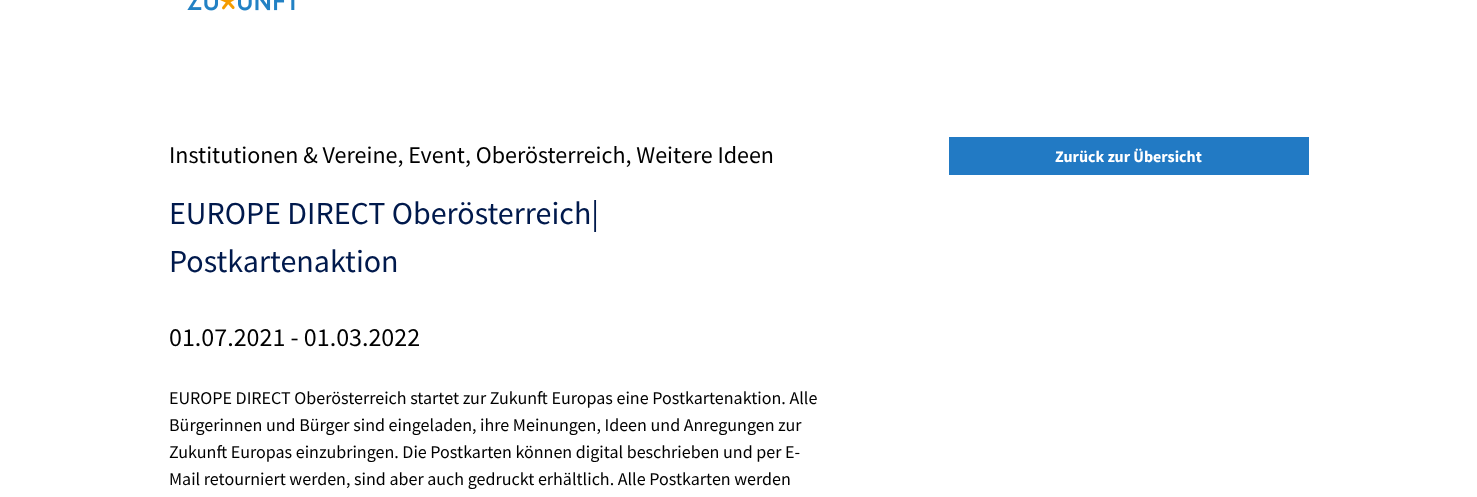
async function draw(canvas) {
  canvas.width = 1477
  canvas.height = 497
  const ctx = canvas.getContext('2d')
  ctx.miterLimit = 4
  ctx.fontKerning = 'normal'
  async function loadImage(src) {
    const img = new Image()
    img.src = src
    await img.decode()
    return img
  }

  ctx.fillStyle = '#fff'
  ctx.fillRect(0, 0, 1477, 497)
  ctx.drawImage(await loadImage('image0.png'), 187, 0, 108, 11)
  ctx.font = '24px Source Sans Pro'
  ctx.fillStyle = '#000'
  ctx.fillText('Institutionen & Vereine, Event, Oberösterreich, Weitere Ideen', 169, 163)
  ctx.font = '32px Source Sans Pro'
  ctx.fillStyle = '#00194c'
  ctx.fillText('EUROPE DIRECT Oberösterreich|', 169, 224)
  ctx.fillText('Postkartenaktion', 169, 272)
  ctx.font = '26px Source Sans Pro'
  ctx.fillStyle = '#000'
  ctx.fillText('01.07.2021 - 01.03.2022', 169, 346)
  ctx.font = '18px Source Sans Pro'
  ctx.fillText('EUROPE DIRECT Oberösterreich startet zur Zukunft Europas eine Postkartenaktion. Alle', 169, 404)
  ctx.fillText('Bürgerinnen und Bürger sind eingeladen, ihre Meinungen, Ideen und Anregungen zur', 169, 431)
  ctx.fillText('Zukunft Europas einzubringen. Die Postkarten können digital beschrieben und per E-', 169, 458)
  ctx.fillText('Mail retourniert werden, sind aber auch gedruckt erhältlich. Alle Postkarten werden', 169, 485)
  ctx.fillStyle = '#227ac4'
  ctx.fillRect(949, 137, 360, 38)
  ctx.font = 'bold 16px Source Sans Pro'
  ctx.fillStyle = '#fff'
  ctx.fillText('Zurück zur Übersicht', 1055, 162)
}

draw(document.querySelector('canvas'))
